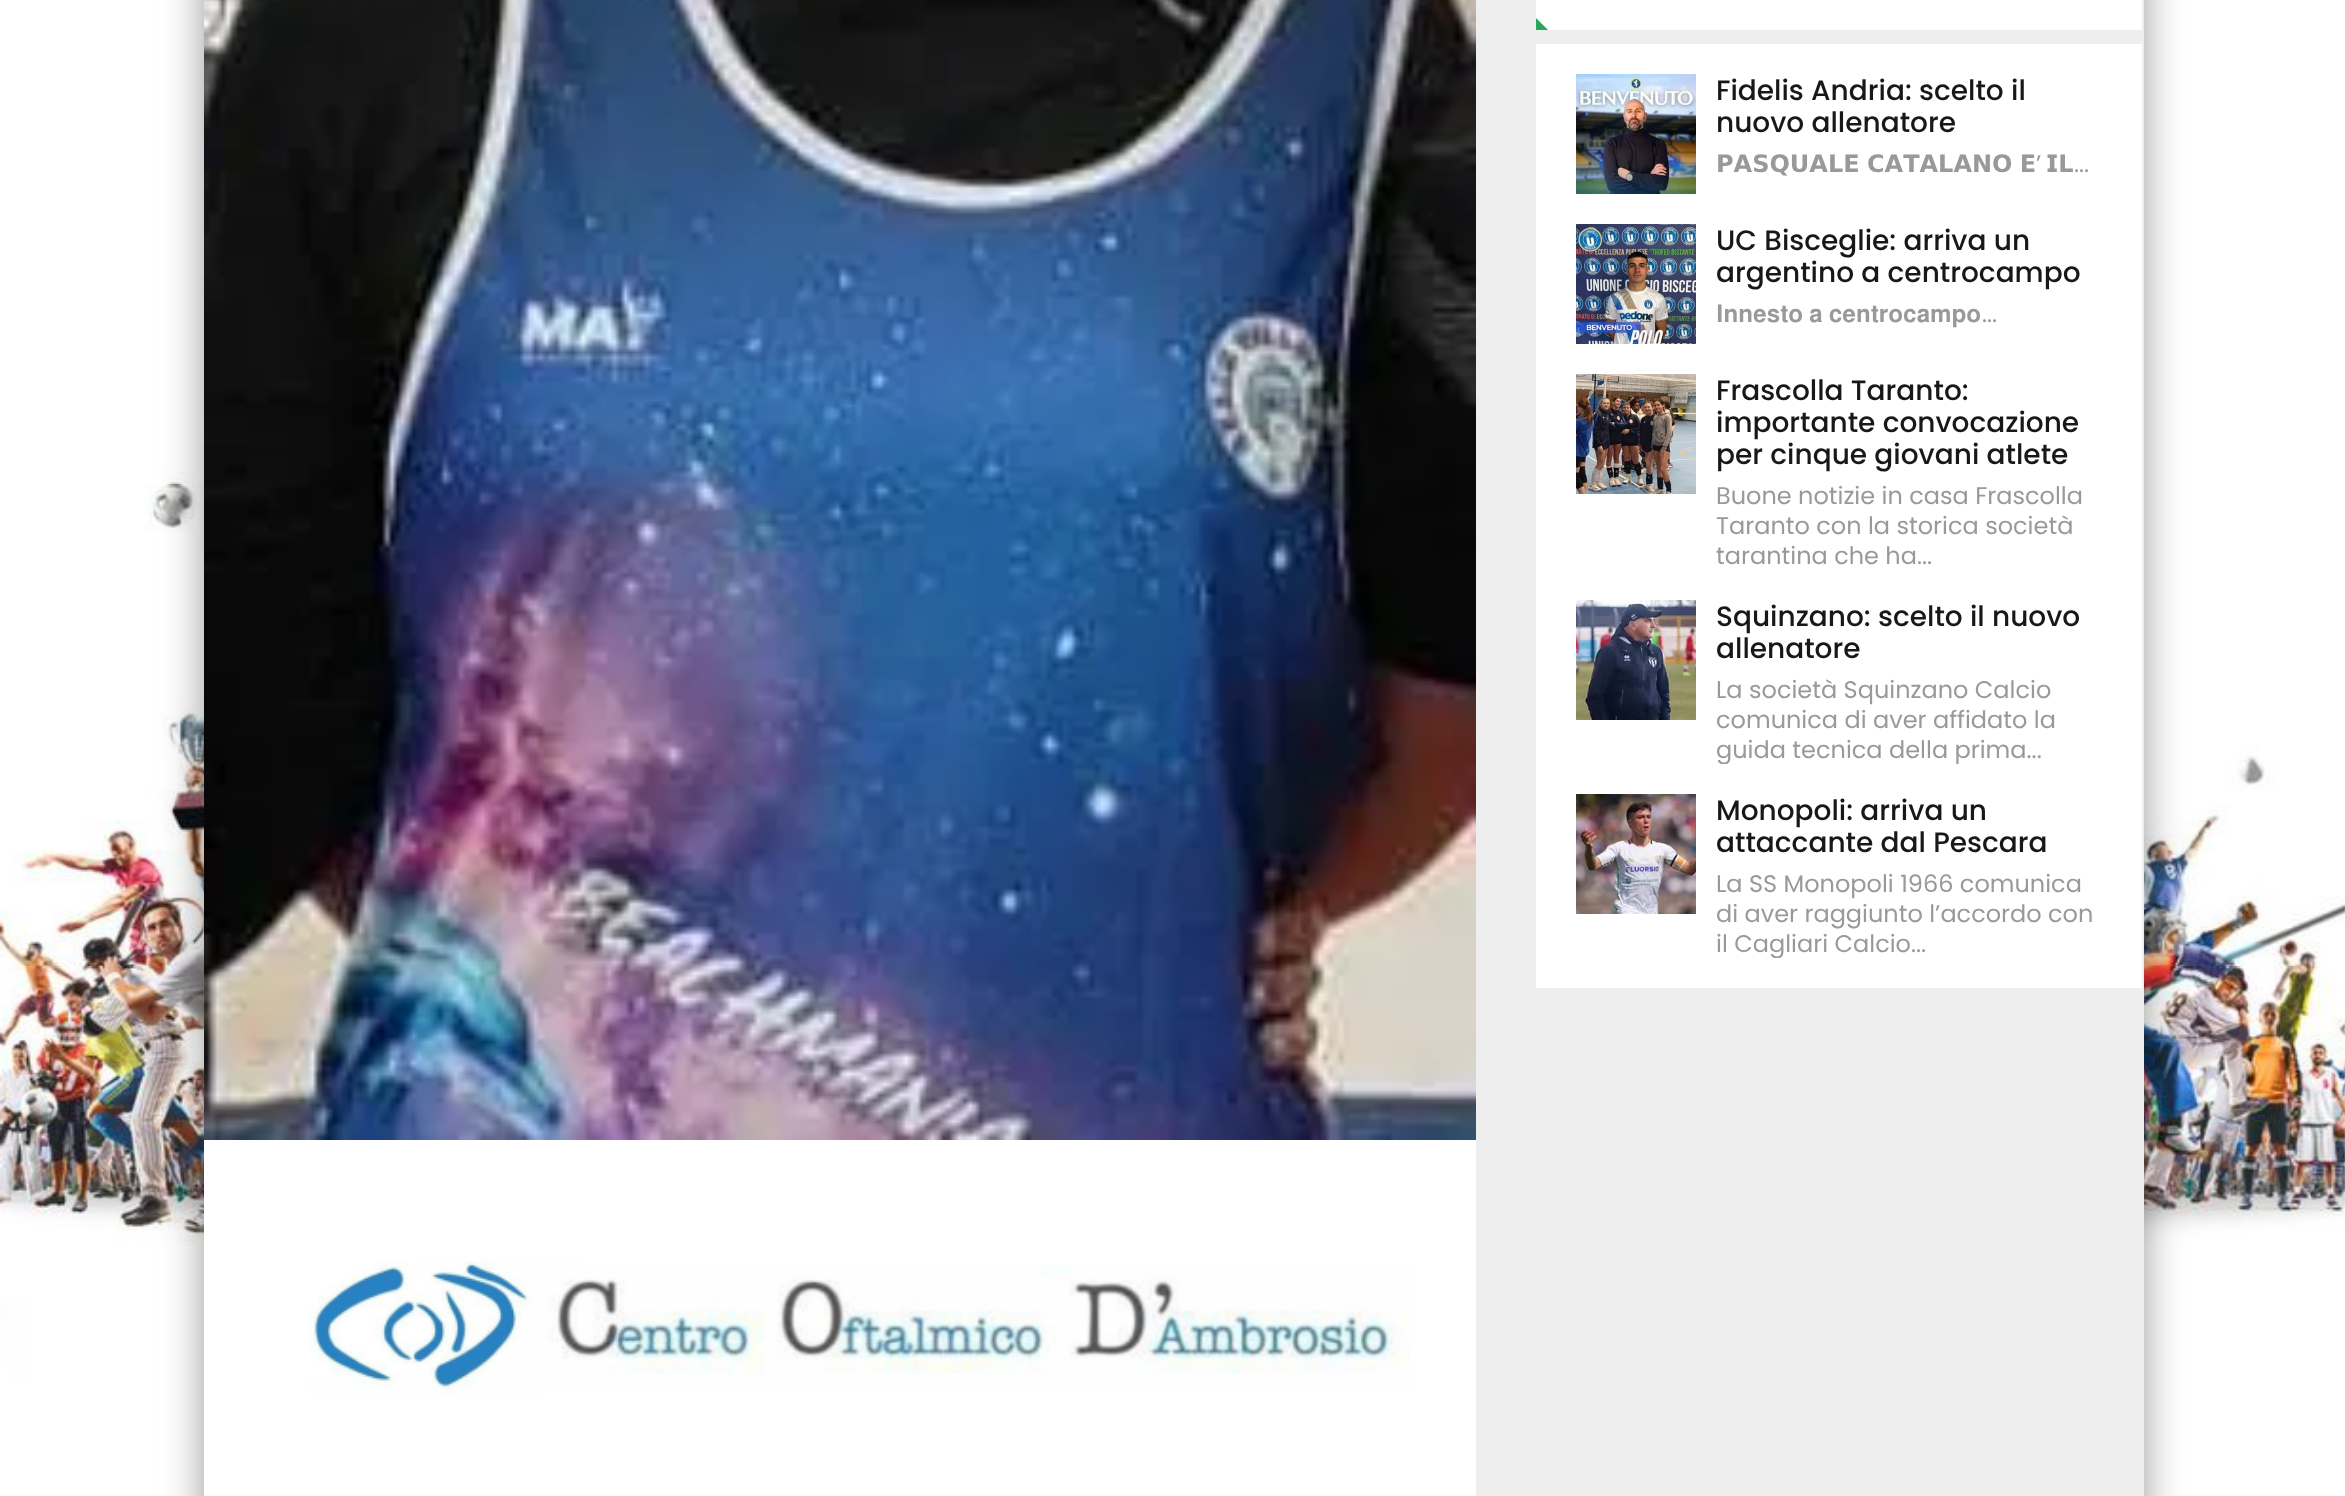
async function draw(canvas) {
  canvas.width = 2345
  canvas.height = 1496
  const ctx = canvas.getContext('2d')
  ctx.miterLimit = 4
  ctx.fontKerning = 'normal'
  async function loadImage(src) {
    const img = new Image()
    img.src = src
    await img.decode()
    return img
  }

  ctx.fillStyle = '#fff'
  ctx.fillRect(0, 0, 2345, 1496)
  ctx.drawImage(await loadImage('image0.png'), 0, 0, 2345, 1496)
  ctx.fillStyle = '#00000066'
  ctx.filter = 'blur(20px)'
  ctx.beginPath()
  ctx.rect(204, -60, 1940, 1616)
  ctx.fill()
  ctx.filter = 'none'
  ctx.fillStyle = '#eee'
  ctx.fillRect(1476, 0, 668, 1496)
  ctx.fillStyle = '#fff'
  ctx.fillRect(204, 1140, 1272, 356)
  ctx.drawImage(await loadImage('image1.png'), 204, 0, 1272, 1140)
  ctx.drawImage(await loadImage('image2.png'), 308, 1260, 1102, 134)
  ctx.fillRect(1536, 0, 606, 30)
  ctx.fillStyle = '#26a65b'
  ctx.beginPath()
  ctx.moveTo(1548, 30)
  ctx.lineTo(1536, 30)
  ctx.lineTo(1536, 18)
  ctx.closePath()
  ctx.fill()
  ctx.fillStyle = '#fff'
  ctx.fillRect(1536, 44, 606, 944)
  ctx.drawImage(await loadImage('image3.png'), 1576, 74, 120, 120)
  ctx.font = '500 28px Poppins'
  ctx.fillStyle = '#181818'
  ctx.fillText('Fidelis Andria: scelto il', 1716, 100)
  ctx.fillText('nuovo allenatore', 1716, 132)
  ctx.wordSpacing = '-1px'
  ctx.font = 'bold 24px DejaVu Sans'
  ctx.fillStyle = '#999'
  ctx.fillText('𝗣𝗔𝗦𝗤𝗨𝗔𝗟𝗘 𝗖𝗔𝗧𝗔𝗟𝗔𝗡𝗢 𝗘', 1716, 172)
  ctx.wordSpacing = '0px'
  ctx.font = '24px Poppins'
  ctx.fillText('’', 2036, 172)
  ctx.font = 'bold 24px DejaVu Sans'
  ctx.fillText('𝗜𝗟', 2046, 172)
  ctx.font = '24px Poppins'
  ctx.fillText('...', 2074, 172)
  ctx.drawImage(await loadImage('image4.png'), 1576, 224, 120, 120)
  ctx.font = '500 28px Poppins'
  ctx.fillStyle = '#181818'
  ctx.fillText('UC Bisceglie: arriva un', 1716, 250)
  ctx.fillText('argentino a centrocampo', 1716, 282)
  ctx.font = '24px FreeSans'
  ctx.fillStyle = '#999'
  ctx.fillText('𝐈𝐧𝐧𝐞𝐬𝐭𝐨 𝐚 𝐜𝐞𝐧𝐭𝐫𝐨𝐜𝐚𝐦𝐩𝐨', 1716, 322)
  ctx.font = '24px Poppins'
  ctx.fillText('...', 1982, 322)
  ctx.drawImage(await loadImage('image5.png'), 1576, 374, 120, 120)
  ctx.font = '500 28px Poppins'
  ctx.fillStyle = '#181818'
  ctx.fillText('Frascolla Taranto:', 1716, 400)
  ctx.fillText('importante convocazione', 1716, 432)
  ctx.fillText('per cinque giovani atlete', 1716, 464)
  ctx.font = '24px Poppins'
  ctx.fillStyle = '#999'
  ctx.fillText('Buone notizie in casa Frascolla', 1716, 504)
  ctx.fillText('Taranto con la storica società', 1716, 534)
  ctx.fillText('tarantina che ha...', 1716, 564)
  ctx.drawImage(await loadImage('image6.png'), 1576, 600, 120, 120)
  ctx.font = '500 28px Poppins'
  ctx.fillStyle = '#181818'
  ctx.fillText('Squinzano: scelto il nuovo', 1716, 626)
  ctx.fillText('allenatore', 1716, 658)
  ctx.font = '24px Poppins'
  ctx.fillStyle = '#999'
  ctx.fillText('La società Squinzano Calcio', 1716, 698)
  ctx.fillText('comunica di aver affidato la', 1716, 728)
  ctx.save()
  ctx.beginPath()
  ctx.rect(1696, 600, 406, 164)
  ctx.clip()
  ctx.fillText('guida tecnica della prima...', 1716, 758)
  ctx.restore()
  ctx.drawImage(await loadImage('image7.png'), 1576, 794, 120, 120)
  ctx.font = '500 28px Poppins'
  ctx.fillStyle = '#181818'
  ctx.fillText('Monopoli: arriva un', 1716, 820)
  ctx.fillText('attaccante dal Pescara', 1716, 852)
  ctx.font = '24px Poppins'
  ctx.fillStyle = '#999'
  ctx.fillText('La SS Monopoli 1966 comunica', 1716, 892)
  ctx.fillText('di aver raggiunto l’accordo con', 1716, 922)
  ctx.save()
  ctx.beginPath()
  ctx.rect(1696, 794, 406, 164)
  ctx.clip()
  ctx.fillText('il Cagliari Calcio...', 1716, 952)
  ctx.restore()
}

draw(document.querySelector('canvas'))
